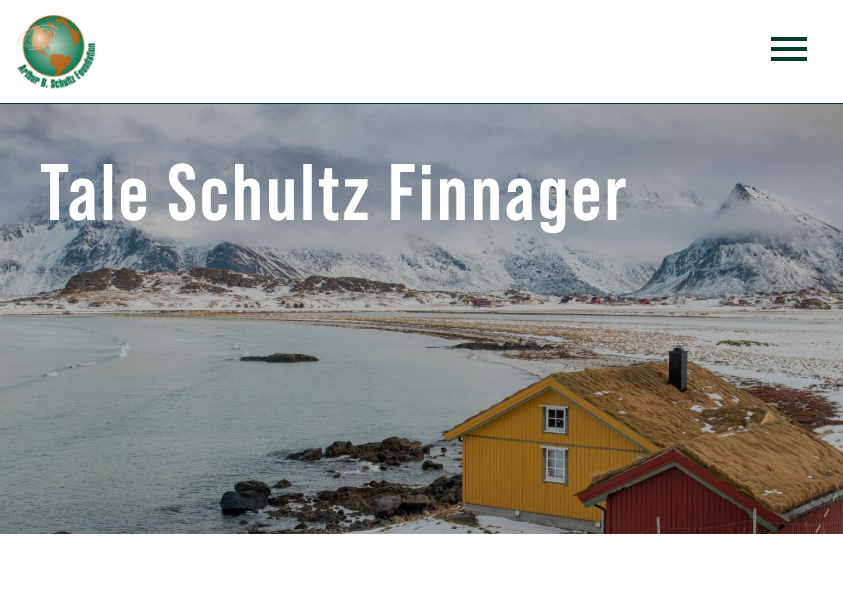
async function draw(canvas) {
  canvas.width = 843
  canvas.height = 594
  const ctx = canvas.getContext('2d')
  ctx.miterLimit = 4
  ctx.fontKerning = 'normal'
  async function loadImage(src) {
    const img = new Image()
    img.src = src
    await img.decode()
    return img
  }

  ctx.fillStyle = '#fff'
  ctx.fillRect(0, 0, 843, 594)
  ctx.fillStyle = '#003d25'
  ctx.fillRect(0, 103, 843, 1)
  ctx.drawImage(await loadImage('image0.png'), 17, 15, 78, 74)
  ctx.beginPath()
  ctx.moveTo(771, 37)
  ctx.lineTo(807, 37)
  ctx.lineTo(807, 41)
  ctx.lineTo(771, 41)
  ctx.closePath()
  ctx.moveTo(771, 51)
  ctx.lineTo(771, 47)
  ctx.lineTo(807, 47)
  ctx.lineTo(807, 51)
  ctx.closePath()
  ctx.moveTo(771, 61)
  ctx.lineTo(771, 57)
  ctx.lineTo(807, 57)
  ctx.lineTo(807, 61)
  ctx.closePath()
  ctx.fill()
  ctx.drawImage(await loadImage('image1.png'), 0, 104, 843, 430)
  ctx.letterSpacing = '3px'
  ctx.font = 'bold 80px Bebas Neue'
  ctx.fillStyle = '#fff'
  ctx.fillText('Tale Schultz Finnager', 40, 220)
}

draw(document.querySelector('canvas'))
